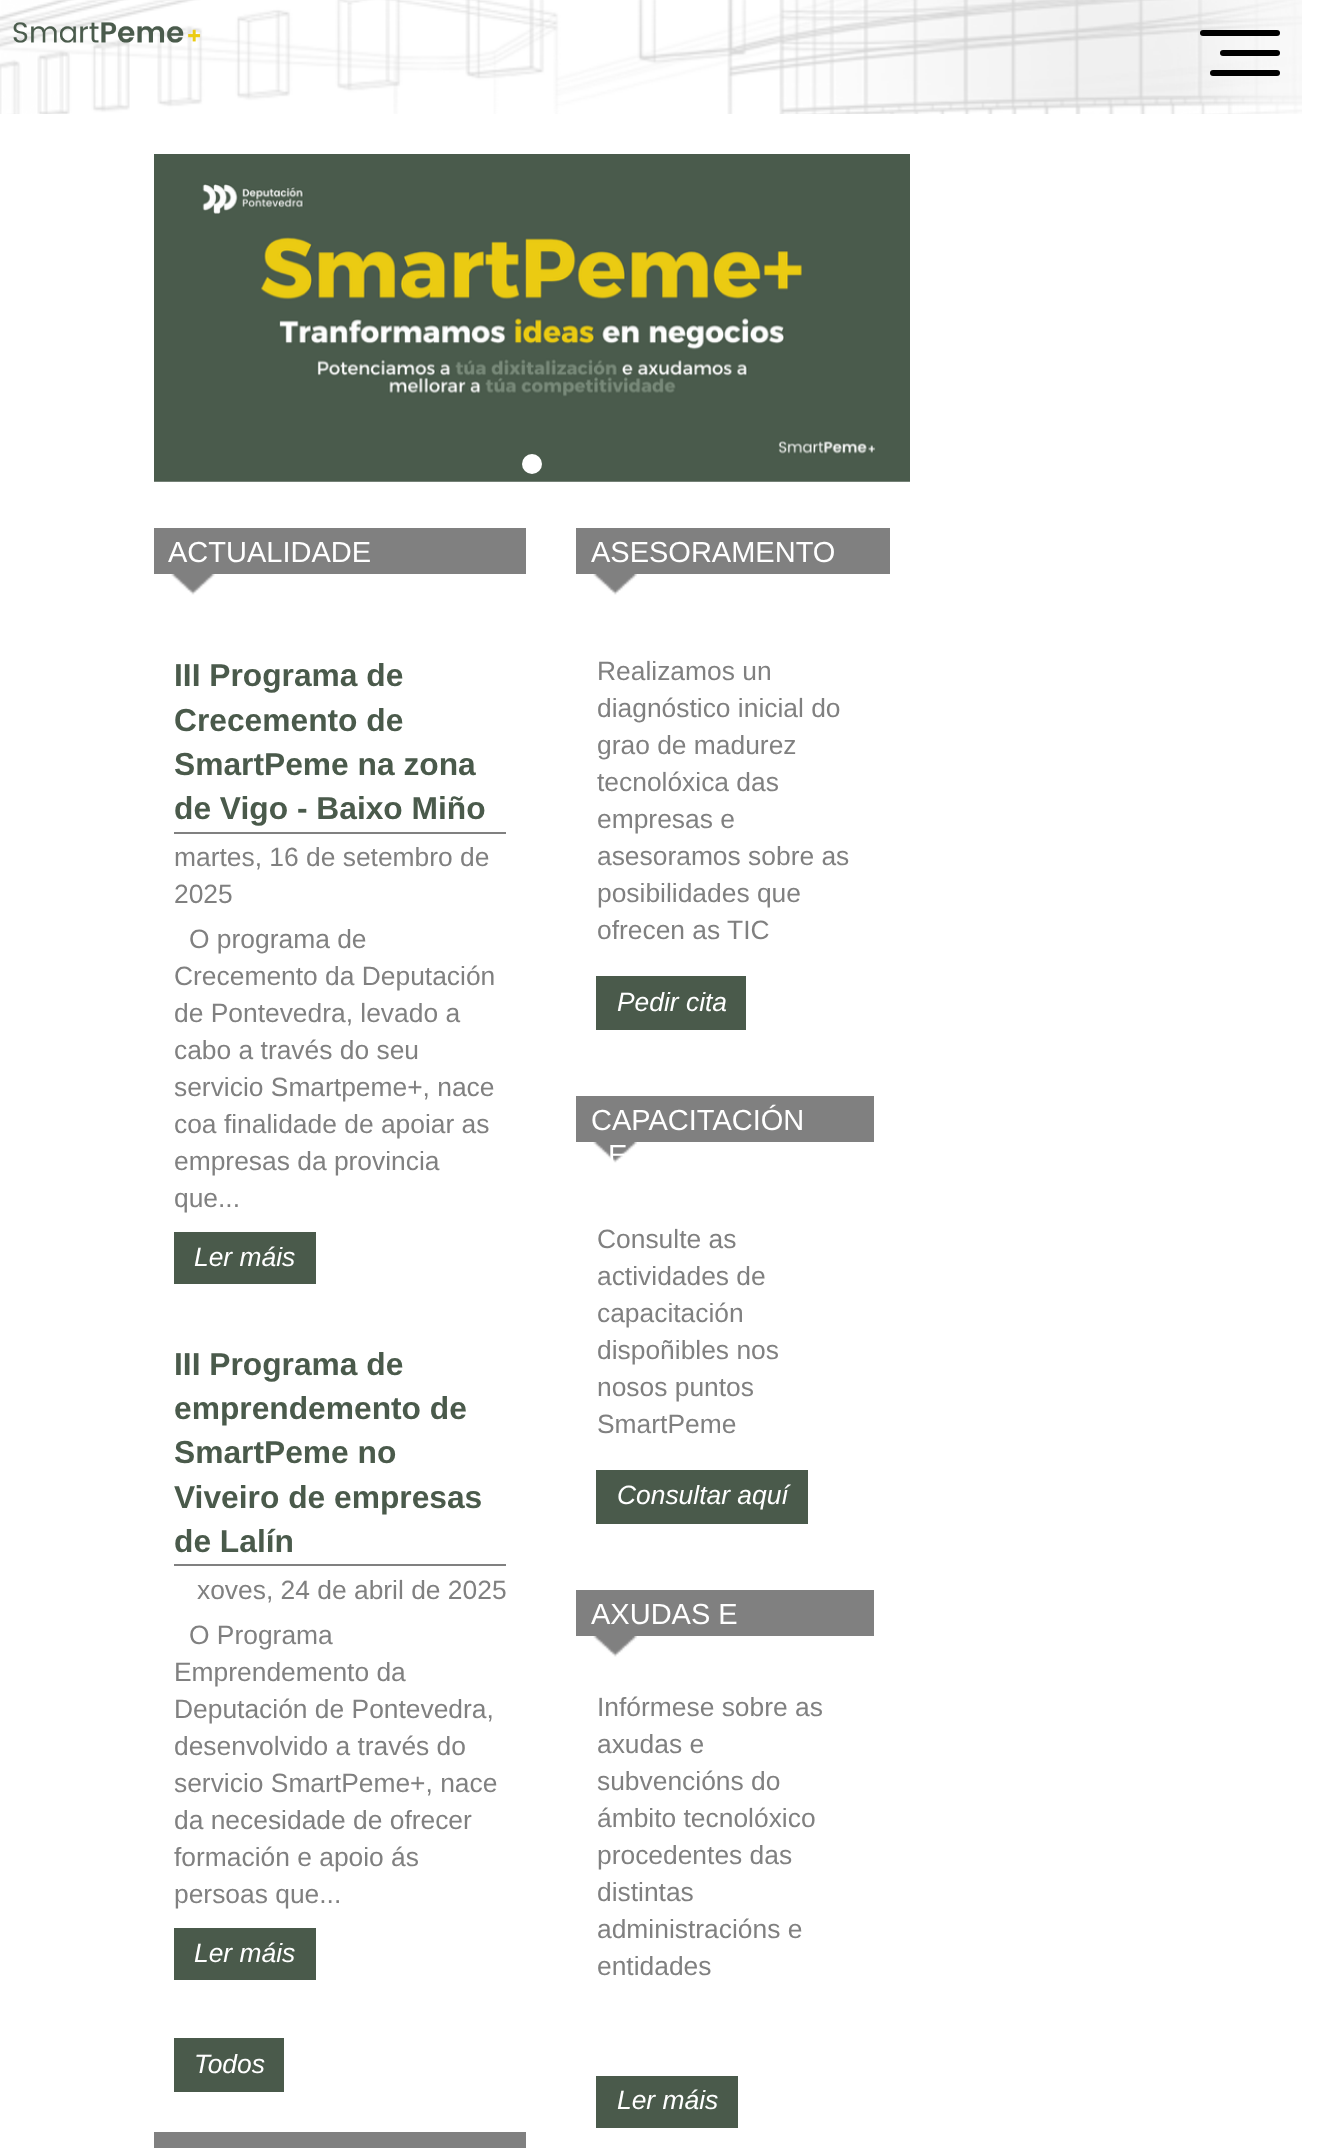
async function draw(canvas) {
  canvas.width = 1327
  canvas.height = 2148
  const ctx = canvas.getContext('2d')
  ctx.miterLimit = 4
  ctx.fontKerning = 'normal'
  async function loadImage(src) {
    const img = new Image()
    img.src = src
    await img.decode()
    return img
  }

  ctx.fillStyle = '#fff'
  ctx.fillRect(0, 0, 1327, 2148)
  ctx.drawImage(await loadImage('image0.png'), 0, 0, 1302, 114)
  ctx.drawImage(await loadImage('image1.png'), 13, 22, 188, 21)
  ctx.fillStyle = '#000'
  ctx.beginPath()
  ctx.roundRect(1220, 50, 60, 6, 3)
  ctx.fill()
  ctx.beginPath()
  ctx.roundRect(1200, 30, 80, 6, 3)
  ctx.fill()
  ctx.beginPath()
  ctx.roundRect(1210, 70, 70, 6, 3)
  ctx.fill()
  ctx.drawImage(await loadImage('image2.png'), 154, 154, 756, 328)
  ctx.fillStyle = '#fff'
  ctx.beginPath()
  ctx.arc(532, 464, 10, 0, 2 * Math.PI)
  ctx.fill()
  ctx.fillStyle = '#808080'
  ctx.fillRect(154, 528, 372, 46)
  ctx.drawImage(await loadImage('image3.png'), 154, 574, 372, 30)
  ctx.font = '29px Liberation Sans'
  ctx.fillStyle = '#fff'
  ctx.fillText('ACTUALIDADE', 168, 562)
  ctx.fillStyle = '#808080'
  ctx.fillRect(174, 832, 332, 2)
  ctx.font = 'bold 31.75px Liberation Sans'
  ctx.fillStyle = '#4a5a4b'
  ctx.fillText('III Programa de', 174, 686)
  ctx.fillText('Crecemento de', 174, 731)
  ctx.fillText('SmartPeme na zona', 174, 775)
  ctx.fillText('de Vigo - Baixo Miño', 174, 819)
  ctx.font = '26.4px Liberation Sans'
  ctx.fillStyle = '#808080'
  ctx.fillText('martes, 16 de setembro de', 174, 866)
  ctx.fillText('2025', 174, 903)
  ctx.fillText('O programa de', 189, 948)
  ctx.fillText('Crecemento da Deputación', 174, 985)
  ctx.fillText('de Pontevedra, levado a', 174, 1022)
  ctx.fillText('cabo a través do seu', 174, 1059)
  ctx.fillText('servicio Smartpeme+, nace', 174, 1096)
  ctx.fillText('coa finalidade de apoiar as', 174, 1133)
  ctx.fillText('empresas da provincia', 174, 1170)
  ctx.fillText('que...', 174, 1207)
  ctx.fillStyle = '#4a5a4b'
  ctx.fillRect(174, 1232, 142, 52)
  ctx.font = 'italic 26.4px Liberation Sans'
  ctx.fillStyle = '#fff'
  ctx.fillText('Ler máis', 194, 1266)
  ctx.fillStyle = '#808080'
  ctx.fillRect(174, 1564, 332, 2)
  ctx.font = 'bold 31.75px Liberation Sans'
  ctx.fillStyle = '#4a5a4b'
  ctx.fillText('III Programa de', 174, 1375)
  ctx.fillText('emprendemento de', 174, 1419)
  ctx.fillText('SmartPeme no', 174, 1463)
  ctx.fillText('Viveiro de empresas', 174, 1508)
  ctx.fillText('de Lalín', 174, 1552)
  ctx.font = '26.4px Liberation Sans'
  ctx.fillStyle = '#808080'
  ctx.fillText('xoves, 24 de abril de 2025', 197, 1599)
  ctx.fillText('O Programa', 189, 1644)
  ctx.fillText('Emprendemento da', 174, 1681)
  ctx.fillText('Deputación de Pontevedra,', 174, 1718)
  ctx.fillText('desenvolvido a través do', 174, 1755)
  ctx.fillText('servicio SmartPeme+, nace', 174, 1792)
  ctx.fillText('da necesidade de ofrecer', 174, 1829)
  ctx.fillText('formación e apoio ás', 174, 1866)
  ctx.fillText('persoas que...', 174, 1903)
  ctx.fillStyle = '#4a5a4b'
  ctx.fillRect(174, 1928, 142, 52)
  ctx.font = 'italic 26.4px Liberation Sans'
  ctx.fillStyle = '#fff'
  ctx.fillText('Ler máis', 194, 1962)
  ctx.fillStyle = '#4a5a4b'
  ctx.fillRect(174, 2038, 110, 54)
  ctx.fillStyle = '#fff'
  ctx.fillText('Todos', 194, 2073)
  ctx.fillStyle = '#808080'
  ctx.fillRect(154, 2132, 372, 16)
  ctx.fillRect(576, 528, 314, 46)
  ctx.drawImage(await loadImage('image4.png'), 576, 574, 314, 30)
  ctx.font = '29px Liberation Sans'
  ctx.fillStyle = '#fff'
  ctx.fillText('ASESORAMENTO', 591, 562)
  ctx.font = '26.4px Liberation Sans'
  ctx.fillStyle = '#808080'
  ctx.fillText('Realizamos un', 597, 680)
  ctx.fillText('diagnóstico inicial do', 597, 717)
  ctx.fillText('grao de madurez', 597, 754)
  ctx.fillText('tecnolóxica das', 597, 791)
  ctx.fillText('empresas e', 597, 828)
  ctx.fillText('asesoramos sobre as', 597, 865)
  ctx.fillText('posibilidades que', 597, 902)
  ctx.fillText('ofrecen as TIC', 597, 939)
  ctx.fillStyle = '#4a5a4b'
  ctx.fillRect(596, 976, 150, 54)
  ctx.font = 'italic 26.4px Liberation Sans'
  ctx.fillStyle = '#fff'
  ctx.fillText('Pedir cita', 617, 1011)
  ctx.fillStyle = '#808080'
  ctx.fillRect(576, 1096, 298, 46)
  ctx.drawImage(await loadImage('image5.png'), 576, 1142, 298, 30)
  ctx.font = '29px Liberation Sans'
  ctx.fillStyle = '#fff'
  ctx.fillText('CAPACITACIÓN', 591, 1130)
  ctx.fillText('E', 608, 1165)
  ctx.font = '26.4px Liberation Sans'
  ctx.fillStyle = '#808080'
  ctx.fillText('Consulte as', 597, 1248)
  ctx.fillText('actividades de', 597, 1285)
  ctx.fillText('capacitación', 597, 1322)
  ctx.fillText('dispoñibles nos', 597, 1359)
  ctx.fillText('nosos puntos', 597, 1396)
  ctx.fillText('SmartPeme', 597, 1433)
  ctx.fillStyle = '#4a5a4b'
  ctx.fillRect(596, 1470, 212, 54)
  ctx.font = 'italic 26.4px Liberation Sans'
  ctx.fillStyle = '#fff'
  ctx.fillText('Consultar aquí', 617, 1504)
  ctx.fillStyle = '#808080'
  ctx.fillRect(576, 1590, 298, 46)
  ctx.drawImage(await loadImage('image5.png'), 576, 1636, 298, 30)
  ctx.font = '29px Liberation Sans'
  ctx.fillStyle = '#fff'
  ctx.fillText('AXUDAS E', 591, 1624)
  ctx.font = '26.4px Liberation Sans'
  ctx.fillStyle = '#808080'
  ctx.fillText('Infórmese sobre as', 597, 1716)
  ctx.fillText('axudas e', 597, 1753)
  ctx.fillText('subvencións do', 597, 1790)
  ctx.fillText('ámbito tecnolóxico', 597, 1827)
  ctx.fillText('procedentes das', 597, 1864)
  ctx.fillText('distintas', 597, 1901)
  ctx.fillText('administracións e', 597, 1938)
  ctx.fillText('entidades', 597, 1975)
  ctx.fillStyle = '#4a5a4b'
  ctx.fillRect(596, 2076, 142, 52)
  ctx.font = 'italic 26.4px Liberation Sans'
  ctx.fillStyle = '#fff'
  ctx.fillText('Ler máis', 617, 2109)
}

draw(document.querySelector('canvas'))
